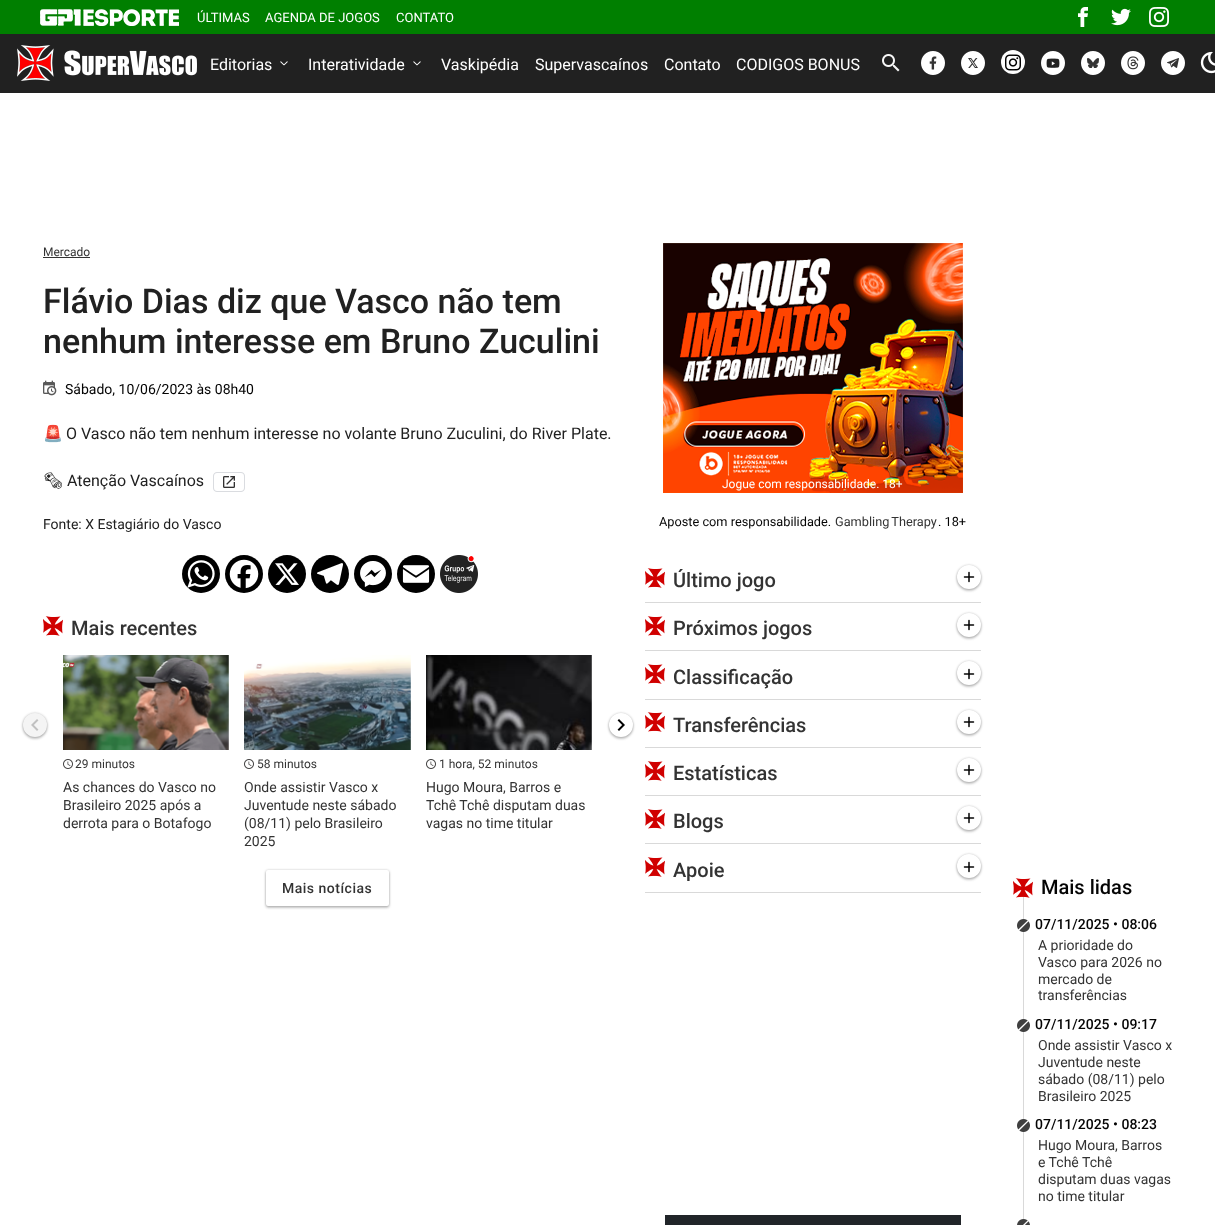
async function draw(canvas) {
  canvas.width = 1215
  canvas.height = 1225
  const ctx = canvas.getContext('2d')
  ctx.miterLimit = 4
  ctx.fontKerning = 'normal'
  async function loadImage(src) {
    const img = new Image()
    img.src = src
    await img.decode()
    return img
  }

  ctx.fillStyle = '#fff'
  ctx.fillRect(0, 0, 1215, 1225)
  ctx.fillStyle = '#007f00'
  ctx.fillRect(0, 0, 1215, 34)
  ctx.drawImage(await loadImage('image0.png'), 40, 9, 139, 17)
  ctx.font = '13px Roboto'
  ctx.fillStyle = '#fff'
  ctx.fillText('ÚLTIMAS', 197, 22)
  ctx.fillText('AGENDA DE JOGOS', 265, 22)
  ctx.fillText('CONTATO', 396, 22)
  ctx.drawImage(await loadImage('image1.png'), 1078, 7, 10, 20)
  ctx.drawImage(await loadImage('image2.png'), 1111, 8, 20, 18)
  ctx.drawImage(await loadImage('image3.png'), 1149, 7, 20, 20)
  ctx.fillStyle = '#212121'
  ctx.fillRect(0, 34, 1215, 59)
  ctx.drawImage(await loadImage('image4.png'), 17, 45, 180, 36)
  ctx.font = '16px Roboto'
  ctx.fillStyle = '#fff'
  ctx.fillText('Editorias', 210, 70)
  ctx.drawImage(await loadImage('image5.png'), 280, 61, 8, 5)
  ctx.fillText('Interatividade', 308, 70)
  ctx.drawImage(await loadImage('image5.png'), 413, 61, 8, 5)
  ctx.fillText('Vaskipédia', 441, 70)
  ctx.fillText('Supervascaínos', 535, 70)
  ctx.fillText('Contato', 664, 70)
  ctx.fillText('CODIGOS BONUS', 736, 70)
  ctx.drawImage(await loadImage('image6.png'), 882, 54, 18, 18)
  ctx.drawImage(await loadImage('image7.png'), 921, 51, 24, 24)
  ctx.drawImage(await loadImage('image8.png'), 961, 51, 24, 24)
  ctx.beginPath()
  ctx.arc(1013, 62, 12, 0, 2 * Math.PI)
  ctx.fill()
  ctx.drawImage(await loadImage('image9.png'), 1005, 54, 16, 17)
  ctx.drawImage(await loadImage('image10.png'), 1041, 51, 24, 24)
  ctx.drawImage(await loadImage('image11.png'), 1081, 51, 24, 24)
  ctx.drawImage(await loadImage('image12.png'), 1121, 51, 24, 24)
  ctx.drawImage(await loadImage('image13.png'), 1161, 51, 24, 24)
  ctx.drawImage(await loadImage('image14.png'), 1200, 51, 15, 23)
  ctx.font = '12px Roboto'
  ctx.fillStyle = '#333'
  ctx.fillText('Mercado', 43, 256)
  ctx.fillRect(43, 257, 47, 1)
  ctx.font = '500 34px Roboto'
  ctx.fillStyle = '#212121'
  ctx.fillText('Flávio Dias diz que Vasco não tem', 43, 313)
  ctx.fillText('nenhum interesse em Bruno Zuculini', 43, 353)
  ctx.drawImage(await loadImage('image15.png'), 43, 380, 14, 16)
  ctx.font = '14px Roboto'
  ctx.fillStyle = '#040404'
  ctx.fillText('Sábado, 10/06/2023 às 08h40', 65, 394)
  ctx.font = '16px Noto Color Emoji'
  ctx.fillStyle = '#212121'
  ctx.fillText('🚨', 43, 439)
  ctx.font = '16px Roboto'
  ctx.fillText('O Vasco não tem nenhum interesse no volante Bruno Zuculini, do River Plate.', 66, 439)
  ctx.font = '16px Noto Emoji'
  ctx.fillText('🗞', 43, 486)
  ctx.font = '16px Roboto'
  ctx.fillText('Atenção Vascaínos', 67, 486)
  ctx.drawImage(await loadImage('image16.png'), 213, 472, 32, 20)
  ctx.font = '14px Roboto'
  ctx.fillText('Fonte: X Estagiário do Vasco', 43, 529)
  ctx.fillStyle = '#000'
  ctx.beginPath()
  ctx.arc(201, 574, 19, 0, 2 * Math.PI)
  ctx.fill()
  ctx.drawImage(await loadImage('image17.png'), 187, 560, 28, 28)
  ctx.beginPath()
  ctx.arc(244, 574, 19, 0, 2 * Math.PI)
  ctx.fill()
  ctx.drawImage(await loadImage('image18.png'), 229, 559, 30, 30)
  ctx.beginPath()
  ctx.arc(287, 574, 19, 0, 2 * Math.PI)
  ctx.fill()
  ctx.drawImage(await loadImage('image19.png'), 275, 563, 24, 22)
  ctx.beginPath()
  ctx.arc(330, 574, 19, 0, 2 * Math.PI)
  ctx.fill()
  ctx.drawImage(await loadImage('image20.png'), 317, 563, 26, 22)
  ctx.beginPath()
  ctx.arc(373, 574, 19, 0, 2 * Math.PI)
  ctx.fill()
  ctx.drawImage(await loadImage('image21.png'), 360, 561, 26, 26)
  ctx.beginPath()
  ctx.arc(416, 574, 19, 0, 2 * Math.PI)
  ctx.fill()
  ctx.drawImage(await loadImage('image22.png'), 402, 565, 28, 18)
  ctx.drawImage(await loadImage('image23.png'), 440, 555, 38, 38)
  ctx.drawImage(await loadImage('image24.png'), 43, 616, 20, 20)
  ctx.font = '500 20px Roboto'
  ctx.fillStyle = '#333'
  ctx.fillText('Mais recentes', 71, 635)
  ctx.fillStyle = '#00000024'
  ctx.filter = 'blur(1px)'
  ctx.beginPath()
  ctx.roundRect(23, 713, 24, 24, 12)
  ctx.fill()
  ctx.filter = 'none'
  ctx.fillStyle = '#0000001f'
  ctx.filter = 'blur(1px)'
  ctx.beginPath()
  ctx.roundRect(23, 715, 24, 24, 12)
  ctx.fill()
  ctx.filter = 'none'
  ctx.fillStyle = '#00000033'
  ctx.filter = 'blur(1.5px)'
  ctx.beginPath()
  ctx.roundRect(23, 714, 24, 24, 12)
  ctx.fill()
  ctx.filter = 'none'
  ctx.fillStyle = '#f4f4f4'
  ctx.beginPath()
  ctx.arc(35, 725, 12, 0, 2 * Math.PI)
  ctx.fill()
  ctx.drawImage(await loadImage('image25.png'), 31, 719, 8, 12)
  ctx.fillStyle = '#00000024'
  ctx.filter = 'blur(1px)'
  ctx.beginPath()
  ctx.roundRect(609, 713, 24, 24, 12)
  ctx.fill()
  ctx.filter = 'none'
  ctx.fillStyle = '#0000001f'
  ctx.filter = 'blur(1px)'
  ctx.beginPath()
  ctx.roundRect(609, 715, 24, 24, 12)
  ctx.fill()
  ctx.filter = 'none'
  ctx.fillStyle = '#00000033'
  ctx.filter = 'blur(1.5px)'
  ctx.beginPath()
  ctx.roundRect(609, 714, 24, 24, 12)
  ctx.fill()
  ctx.filter = 'none'
  ctx.fillStyle = '#fff'
  ctx.beginPath()
  ctx.arc(621, 725, 12, 0, 2 * Math.PI)
  ctx.fill()
  ctx.drawImage(await loadImage('image26.png'), 617, 719, 8, 12)
  ctx.drawImage(await loadImage('image27.png'), 63, 655, 166, 95)
  ctx.drawImage(await loadImage('image28.png'), 63, 759, 10, 10)
  ctx.font = '12px Roboto'
  ctx.fillStyle = '#333'
  ctx.fillText('29 minutos', 75, 768)
  ctx.font = '14px Roboto'
  ctx.fillText('As chances do Vasco no', 63, 792)
  ctx.fillText('Brasileiro 2025 após a', 63, 810)
  ctx.fillText('derrota para o Botafogo', 63, 828)
  ctx.drawImage(await loadImage('image29.png'), 244, 655, 167, 95)
  ctx.drawImage(await loadImage('image28.png'), 244, 759, 10, 10)
  ctx.font = '12px Roboto'
  ctx.fillText('58 minutos', 257, 768)
  ctx.font = '14px Roboto'
  ctx.fillText('Onde assistir Vasco x', 244, 792)
  ctx.fillText('Juventude neste sábado', 244, 810)
  ctx.fillText('(08/11) pelo Brasileiro', 244, 828)
  ctx.fillText('2025', 244, 846)
  ctx.drawImage(await loadImage('image30.png'), 426, 655, 166, 95)
  ctx.drawImage(await loadImage('image28.png'), 426, 759, 10, 10)
  ctx.font = '12px Roboto'
  ctx.fillText('1 hora, 52 minutos', 439, 768)
  ctx.font = '14px Roboto'
  ctx.fillText('Hugo Moura, Barros e', 426, 792)
  ctx.fillText('Tchê Tchê disputam duas', 426, 810)
  ctx.fillText('vagas no time titular', 426, 828)
  ctx.fillStyle = '#00000024'
  ctx.filter = 'blur(1px)'
  ctx.beginPath()
  ctx.roundRect(266, 870, 123, 36, 2)
  ctx.fill()
  ctx.filter = 'none'
  ctx.fillStyle = '#0000001f'
  ctx.filter = 'blur(1px)'
  ctx.beginPath()
  ctx.roundRect(266, 872, 123, 36, 2)
  ctx.fill()
  ctx.filter = 'none'
  ctx.fillStyle = '#00000033'
  ctx.filter = 'blur(1.5px)'
  ctx.beginPath()
  ctx.roundRect(266, 871, 123, 36, 2)
  ctx.fill()
  ctx.filter = 'none'
  ctx.fillStyle = '#fff'
  ctx.beginPath()
  ctx.roundRect(266, 870, 123, 36, 2)
  ctx.fill()
  ctx.letterSpacing = '0.5px'
  ctx.font = '500 14px Roboto'
  ctx.fillStyle = '#333'
  ctx.fillText('Mais notícias', 282, 893)
  ctx.drawImage(await loadImage('image31.png'), 663, 243, 300, 250)
  ctx.letterSpacing = '0px'
  ctx.font = '12px Roboto'
  ctx.fillStyle = '#fff'
  ctx.fillText('Jogue com responsabilidade. 18+', 722, 488)
  ctx.font = '12.75px Roboto'
  ctx.fillStyle = '#040404'
  ctx.fillText('Aposte com responsabilidade.', 659, 526)
  ctx.wordSpacing = '-1px'
  ctx.fillStyle = '#333'
  ctx.fillText('Gambling Therapy', 835, 526)
  ctx.wordSpacing = '0px'
  ctx.fillStyle = '#040404'
  ctx.fillText('. 18+', 938, 526)
  ctx.fillStyle = '#d9d9d9'
  ctx.fillRect(645, 602, 336, 1)
  ctx.drawImage(await loadImage('image24.png'), 645, 568, 20, 20)
  ctx.font = '500 20px Roboto'
  ctx.fillStyle = '#333'
  ctx.fillText('Último jogo', 673, 587)
  ctx.fillStyle = '#00000024'
  ctx.filter = 'blur(1px)'
  ctx.beginPath()
  ctx.roundRect(957, 565, 24, 24, 12)
  ctx.fill()
  ctx.filter = 'none'
  ctx.fillStyle = '#0000001f'
  ctx.filter = 'blur(1px)'
  ctx.beginPath()
  ctx.roundRect(957, 567, 24, 24, 12)
  ctx.fill()
  ctx.filter = 'none'
  ctx.fillStyle = '#00000033'
  ctx.filter = 'blur(1.5px)'
  ctx.beginPath()
  ctx.roundRect(957, 566, 24, 24, 12)
  ctx.fill()
  ctx.filter = 'none'
  ctx.fillStyle = '#fff'
  ctx.beginPath()
  ctx.arc(969, 577, 12, 0, 2 * Math.PI)
  ctx.fill()
  ctx.drawImage(await loadImage('image32.png'), 963, 571, 12, 12)
  ctx.fillStyle = '#d9d9d9'
  ctx.fillRect(645, 650, 336, 1)
  ctx.drawImage(await loadImage('image24.png'), 645, 616, 20, 20)
  ctx.fillStyle = '#333'
  ctx.fillText('Próximos jogos', 673, 635)
  ctx.fillStyle = '#00000024'
  ctx.filter = 'blur(1px)'
  ctx.beginPath()
  ctx.roundRect(957, 613, 24, 24, 12)
  ctx.fill()
  ctx.filter = 'none'
  ctx.fillStyle = '#0000001f'
  ctx.filter = 'blur(1px)'
  ctx.beginPath()
  ctx.roundRect(957, 615, 24, 24, 12)
  ctx.fill()
  ctx.filter = 'none'
  ctx.fillStyle = '#00000033'
  ctx.filter = 'blur(1.5px)'
  ctx.beginPath()
  ctx.roundRect(957, 614, 24, 24, 12)
  ctx.fill()
  ctx.filter = 'none'
  ctx.fillStyle = '#fff'
  ctx.beginPath()
  ctx.arc(969, 625, 12, 0, 2 * Math.PI)
  ctx.fill()
  ctx.drawImage(await loadImage('image32.png'), 963, 619, 12, 12)
  ctx.fillStyle = '#d9d9d9'
  ctx.fillRect(645, 699, 336, 1)
  ctx.drawImage(await loadImage('image24.png'), 645, 664, 20, 20)
  ctx.fillStyle = '#333'
  ctx.fillText('Classificação', 673, 684)
  ctx.fillStyle = '#00000024'
  ctx.filter = 'blur(1px)'
  ctx.beginPath()
  ctx.roundRect(957, 661, 24, 24, 12)
  ctx.fill()
  ctx.filter = 'none'
  ctx.fillStyle = '#0000001f'
  ctx.filter = 'blur(1px)'
  ctx.beginPath()
  ctx.roundRect(957, 663, 24, 24, 12)
  ctx.fill()
  ctx.filter = 'none'
  ctx.fillStyle = '#00000033'
  ctx.filter = 'blur(1.5px)'
  ctx.beginPath()
  ctx.roundRect(957, 662, 24, 24, 12)
  ctx.fill()
  ctx.filter = 'none'
  ctx.fillStyle = '#fff'
  ctx.beginPath()
  ctx.arc(969, 673, 12, 0, 2 * Math.PI)
  ctx.fill()
  ctx.drawImage(await loadImage('image32.png'), 963, 668, 12, 12)
  ctx.fillStyle = '#d9d9d9'
  ctx.fillRect(645, 747, 336, 1)
  ctx.drawImage(await loadImage('image24.png'), 645, 712, 20, 20)
  ctx.fillStyle = '#333'
  ctx.fillText('Transferências', 673, 732)
  ctx.fillStyle = '#00000024'
  ctx.filter = 'blur(1px)'
  ctx.beginPath()
  ctx.roundRect(957, 710, 24, 24, 12)
  ctx.fill()
  ctx.filter = 'none'
  ctx.fillStyle = '#0000001f'
  ctx.filter = 'blur(1px)'
  ctx.beginPath()
  ctx.roundRect(957, 712, 24, 24, 12)
  ctx.fill()
  ctx.filter = 'none'
  ctx.fillStyle = '#00000033'
  ctx.filter = 'blur(1.5px)'
  ctx.beginPath()
  ctx.roundRect(957, 711, 24, 24, 12)
  ctx.fill()
  ctx.filter = 'none'
  ctx.fillStyle = '#fff'
  ctx.beginPath()
  ctx.arc(969, 722, 12, 0, 2 * Math.PI)
  ctx.fill()
  ctx.drawImage(await loadImage('image32.png'), 963, 716, 12, 12)
  ctx.fillStyle = '#d9d9d9'
  ctx.fillRect(645, 795, 336, 1)
  ctx.drawImage(await loadImage('image24.png'), 645, 761, 20, 20)
  ctx.fillStyle = '#333'
  ctx.fillText('Estatísticas', 673, 780)
  ctx.fillStyle = '#00000024'
  ctx.filter = 'blur(1px)'
  ctx.beginPath()
  ctx.roundRect(957, 758, 24, 24, 12)
  ctx.fill()
  ctx.filter = 'none'
  ctx.fillStyle = '#0000001f'
  ctx.filter = 'blur(1px)'
  ctx.beginPath()
  ctx.roundRect(957, 760, 24, 24, 12)
  ctx.fill()
  ctx.filter = 'none'
  ctx.fillStyle = '#00000033'
  ctx.filter = 'blur(1.5px)'
  ctx.beginPath()
  ctx.roundRect(957, 759, 24, 24, 12)
  ctx.fill()
  ctx.filter = 'none'
  ctx.fillStyle = '#fff'
  ctx.beginPath()
  ctx.arc(969, 770, 12, 0, 2 * Math.PI)
  ctx.fill()
  ctx.drawImage(await loadImage('image32.png'), 963, 764, 12, 12)
  ctx.fillStyle = '#d9d9d9'
  ctx.fillRect(645, 843, 336, 1)
  ctx.drawImage(await loadImage('image24.png'), 645, 809, 20, 20)
  ctx.fillStyle = '#333'
  ctx.fillText('Blogs', 673, 828)
  ctx.fillStyle = '#00000024'
  ctx.filter = 'blur(1px)'
  ctx.beginPath()
  ctx.roundRect(957, 806, 24, 24, 12)
  ctx.fill()
  ctx.filter = 'none'
  ctx.fillStyle = '#0000001f'
  ctx.filter = 'blur(1px)'
  ctx.beginPath()
  ctx.roundRect(957, 808, 24, 24, 12)
  ctx.fill()
  ctx.filter = 'none'
  ctx.fillStyle = '#00000033'
  ctx.filter = 'blur(1.5px)'
  ctx.beginPath()
  ctx.roundRect(957, 807, 24, 24, 12)
  ctx.fill()
  ctx.filter = 'none'
  ctx.fillStyle = '#fff'
  ctx.beginPath()
  ctx.arc(969, 818, 12, 0, 2 * Math.PI)
  ctx.fill()
  ctx.drawImage(await loadImage('image32.png'), 963, 812, 12, 12)
  ctx.fillStyle = '#d9d9d9'
  ctx.fillRect(645, 892, 336, 1)
  ctx.drawImage(await loadImage('image24.png'), 645, 857, 20, 20)
  ctx.fillStyle = '#333'
  ctx.fillText('Apoie', 673, 877)
  ctx.fillStyle = '#00000024'
  ctx.filter = 'blur(1px)'
  ctx.beginPath()
  ctx.roundRect(957, 854, 24, 24, 12)
  ctx.fill()
  ctx.filter = 'none'
  ctx.fillStyle = '#0000001f'
  ctx.filter = 'blur(1px)'
  ctx.beginPath()
  ctx.roundRect(957, 856, 24, 24, 12)
  ctx.fill()
  ctx.filter = 'none'
  ctx.fillStyle = '#00000033'
  ctx.filter = 'blur(1.5px)'
  ctx.beginPath()
  ctx.roundRect(957, 855, 24, 24, 12)
  ctx.fill()
  ctx.filter = 'none'
  ctx.fillStyle = '#fff'
  ctx.beginPath()
  ctx.arc(969, 866, 12, 0, 2 * Math.PI)
  ctx.fill()
  ctx.drawImage(await loadImage('image32.png'), 963, 861, 12, 12)
  ctx.fillStyle = '#212529'
  ctx.fillRect(665, 1215, 296, 10)
  ctx.fillStyle = '#d9d9d9'
  ctx.fillRect(1023, 896, 1, 329)
  ctx.drawImage(await loadImage('image33.png'), 1013, 878, 20, 20)
  ctx.fillStyle = '#040404'
  ctx.fillText('Mais lidas', 1041, 894)
  ctx.drawImage(await loadImage('image34.png'), 1017, 919, 13, 13)
  ctx.font = '500 14px Roboto'
  ctx.fillText('07/11/2025 • 08:06', 1035, 929)
  ctx.font = '14px Roboto'
  ctx.fillStyle = '#333'
  ctx.fillText('A prioridade do', 1038, 950)
  ctx.fillText('Vasco para 2026 no', 1038, 967)
  ctx.fillText('mercado de', 1038, 984)
  ctx.fillText('transferências', 1038, 1000)
  ctx.drawImage(await loadImage('image34.png'), 1017, 1019, 13, 13)
  ctx.font = '500 14px Roboto'
  ctx.fillStyle = '#040404'
  ctx.fillText('07/11/2025 • 09:17', 1035, 1029)
  ctx.font = '14px Roboto'
  ctx.fillStyle = '#333'
  ctx.fillText('Onde assistir Vasco x', 1038, 1050)
  ctx.fillText('Juventude neste', 1038, 1067)
  ctx.fillText('sábado (08/11) pelo', 1038, 1084)
  ctx.fillText('Brasileiro 2025', 1038, 1101)
  ctx.drawImage(await loadImage('image34.png'), 1017, 1119, 13, 13)
  ctx.font = '500 14px Roboto'
  ctx.fillStyle = '#040404'
  ctx.fillText('07/11/2025 • 08:23', 1035, 1129)
  ctx.font = '14px Roboto'
  ctx.fillStyle = '#333'
  ctx.fillText('Hugo Moura, Barros', 1038, 1150)
  ctx.fillText('e Tchê Tchê', 1038, 1167)
  ctx.fillText('disputam duas vagas', 1038, 1184)
  ctx.fillText('no time titular', 1038, 1201)
  ctx.drawImage(await loadImage('image35.png'), 1017, 1219, 13, 6)
}

draw(document.querySelector('canvas'))
